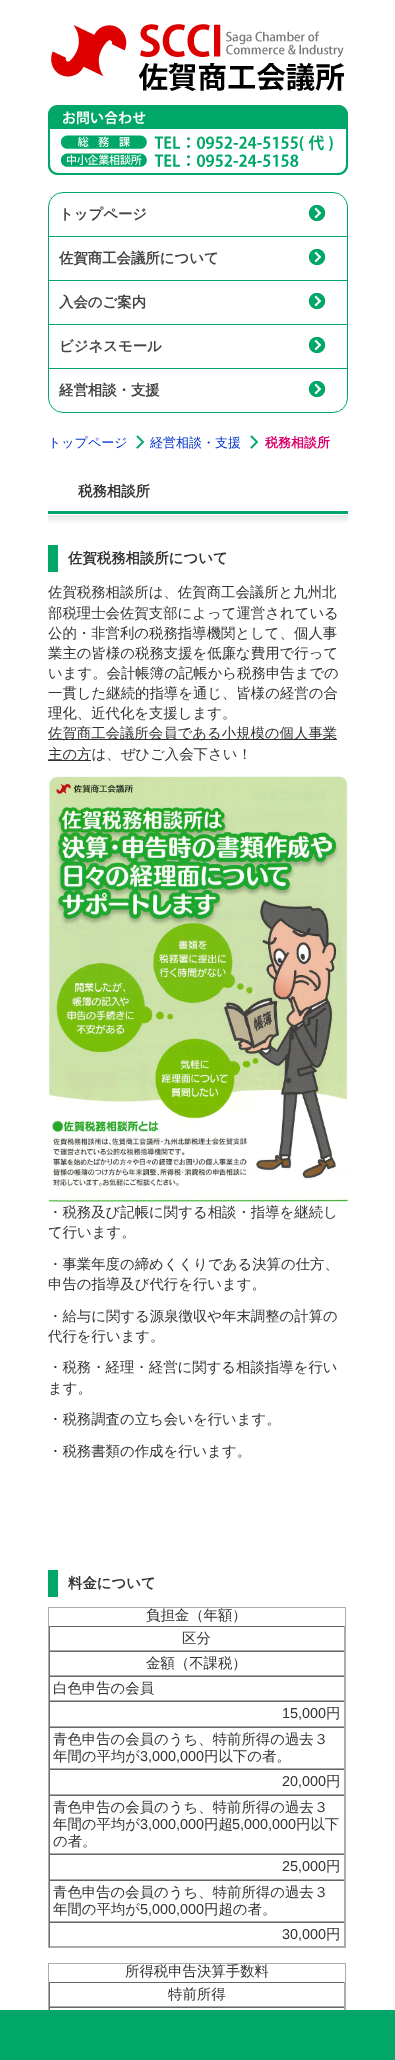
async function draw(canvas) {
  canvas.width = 395
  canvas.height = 2060
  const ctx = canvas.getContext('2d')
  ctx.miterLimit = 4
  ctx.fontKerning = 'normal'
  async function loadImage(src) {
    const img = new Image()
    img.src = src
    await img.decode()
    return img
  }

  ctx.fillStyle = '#fff'
  ctx.fillRect(0, 0, 395, 2060)
  ctx.drawImage(await loadImage('image0.png'), 51, 24, 293, 67)
  ctx.drawImage(await loadImage('image1.png'), 48, 105, 300, 70)
  ctx.beginPath()
  ctx.roundRect(48.5, 192.5, 299, 220, 14.5)
  ctx.strokeStyle = '#00a768'
  ctx.stroke()
  ctx.drawImage(await loadImage('image2.png'), 309, 205, 16, 16)
  ctx.font = 'bold 14.4px WenQuanYi Zen Hei'
  ctx.fillStyle = '#444'
  ctx.fillText('トップページ', 59, 219)
  ctx.drawImage(await loadImage('image2.png'), 309, 249, 16, 16)
  ctx.fillStyle = '#00a768'
  ctx.fillRect(49, 236, 298, 1)
  ctx.fillStyle = '#444'
  ctx.fillText('佐賀商工会議所について', 59, 263)
  ctx.drawImage(await loadImage('image2.png'), 309, 293, 16, 16)
  ctx.fillStyle = '#00a768'
  ctx.fillRect(49, 280, 298, 1)
  ctx.fillStyle = '#444'
  ctx.fillText('入会のご案内', 59, 307)
  ctx.drawImage(await loadImage('image2.png'), 309, 337, 16, 16)
  ctx.fillStyle = '#00a768'
  ctx.fillRect(49, 324, 298, 1)
  ctx.fillStyle = '#444'
  ctx.fillText('ビジネスモール', 59, 351)
  ctx.drawImage(await loadImage('image2.png'), 309, 381, 16, 16)
  ctx.fillStyle = '#00a768'
  ctx.fillRect(49, 368, 298, 1)
  ctx.fillStyle = '#444'
  ctx.fillText('経営相談・支援', 59, 395)
  ctx.font = '500 13px WenQuanYi Zen Hei'
  ctx.fillStyle = '#03c'
  ctx.fillText('トップページ', 48, 447)
  ctx.drawImage(await loadImage('image3.png'), 136, 435, 9, 14)
  ctx.fillText('経営相談・支援', 150, 447)
  ctx.drawImage(await loadImage('image3.png'), 250, 435, 9, 14)
  ctx.font = 'bold 13px WenQuanYi Zen Hei'
  ctx.fillStyle = '#d9006c'
  ctx.fillText('税務相談所', 265, 447)
  ctx.drawImage(await loadImage('image4.png'), 48, 511, 300, 12)
  ctx.font = 'bold 14.4px WenQuanYi Zen Hei'
  ctx.fillStyle = '#333'
  ctx.fillText('税務相談所', 78, 496)
  ctx.fillStyle = '#00a768'
  ctx.fillRect(48, 545, 10, 27)
  ctx.fillStyle = '#333'
  ctx.fillText('佐賀税務相談所について', 68, 563)
  ctx.font = '500 14.4px WenQuanYi Zen Hei'
  ctx.fillText('佐賀税務相談所は、佐賀商工会議所と九州北', 48, 597)
  ctx.fillText('部税理士会佐賀支部によって運営されている', 48, 618)
  ctx.fillText('公的・非営利の税務指導機関として、個人事', 48, 638)
  ctx.fillText('業主の皆様の税務支援を低廉な費用で行って', 48, 658)
  ctx.fillText('います。会計帳簿の記帳から税務申告までの', 48, 678)
  ctx.fillText('一貫した継続的指導を通じ、皆様の経営の合', 48, 698)
  ctx.fillText('理化、近代化を支援します。', 48, 718)
  ctx.fillRect(48, 739, 289, 1)
  ctx.fillText('佐賀商工会議所会員である小規模の個人事業', 48, 738)
  ctx.fillRect(48, 760, 43, 1)
  ctx.fillText('主の方は、ぜひご入会下さい！', 48, 759)
  ctx.drawImage(await loadImage('image5.png'), 48, 775, 300, 427)
  ctx.fillText('・税務及び記帳に関する相談・指導を継続し', 48, 1217)
  ctx.fillText('て行います。', 48, 1237)
  ctx.fillText('・事業年度の締めくくりである決算の仕方、', 48, 1269)
  ctx.fillText('申告の指導及び代行を行います。', 48, 1289)
  ctx.fillText('・給与に関する源泉徴収や年末調整の計算の', 48, 1321)
  ctx.fillText('代行を行います。', 48, 1341)
  ctx.fillText('・税務・経理・経営に関する相談指導を行い', 48, 1372)
  ctx.fillText('ます。', 48, 1393)
  ctx.fillText('・税務調査の立ち会いを行います。', 48, 1424)
  ctx.fillText('・税務書類の作成を行います。', 48, 1456)
  ctx.fillStyle = '#00a768'
  ctx.fillRect(48, 1570, 10, 27)
  ctx.font = 'bold 14.4px WenQuanYi Zen Hei'
  ctx.fillStyle = '#333'
  ctx.fillText('料金について', 68, 1588)
  ctx.fillStyle = '#aaa'
  ctx.fillRect(48, 1607, 298, 1)
  ctx.fillRect(345, 1607, 1, 341)
  ctx.fillRect(48, 1947, 298, 1)
  ctx.fillRect(48, 1607, 1, 341)
  ctx.font = '500 14.4px WenQuanYi Zen Hei'
  ctx.fillStyle = '#333'
  ctx.fillText('負担金（年額）', 146, 1620)
  ctx.fillStyle = '#666'
  ctx.fillRect(49, 1626, 296, 1)
  ctx.fillStyle = '#aaa'
  ctx.fillRect(344, 1626, 1, 25)
  ctx.fillRect(49, 1650, 296, 1)
  ctx.fillStyle = '#717171'
  ctx.fillRect(49, 1626, 1, 25)
  ctx.fillStyle = '#333'
  ctx.fillText('区分', 182, 1643)
  ctx.fillStyle = '#666'
  ctx.fillRect(49, 1651, 296, 1)
  ctx.fillStyle = '#aaa'
  ctx.fillRect(344, 1651, 1, 25)
  ctx.fillRect(49, 1675, 296, 1)
  ctx.fillStyle = '#717171'
  ctx.fillRect(49, 1651, 1, 25)
  ctx.fillStyle = '#333'
  ctx.fillText('金額（不課税）', 146, 1668)
  ctx.fillStyle = '#666'
  ctx.fillRect(49, 1676, 296, 1)
  ctx.fillStyle = '#aaa'
  ctx.fillRect(344, 1676, 1, 25)
  ctx.fillRect(49, 1700, 296, 1)
  ctx.fillStyle = '#717171'
  ctx.fillRect(49, 1676, 1, 25)
  ctx.fillStyle = '#333'
  ctx.fillText('白色申告の会員', 53, 1693)
  ctx.fillStyle = '#666'
  ctx.fillRect(49, 1701, 296, 1)
  ctx.fillStyle = '#aaa'
  ctx.fillRect(344, 1701, 1, 26)
  ctx.fillRect(49, 1726, 296, 1)
  ctx.fillStyle = '#717171'
  ctx.fillRect(49, 1701, 1, 26)
  ctx.font = '14.4px Liberation Sans'
  ctx.fillStyle = '#333'
  ctx.fillText('15,000', 282, 1718)
  ctx.font = '500 14.4px WenQuanYi Zen Hei'
  ctx.fillText('円', 326, 1718)
  ctx.fillStyle = '#666'
  ctx.fillRect(49, 1727, 296, 1)
  ctx.fillStyle = '#aaa'
  ctx.fillRect(344, 1727, 1, 42)
  ctx.fillRect(49, 1768, 296, 1)
  ctx.fillStyle = '#717171'
  ctx.fillRect(49, 1727, 1, 42)
  ctx.fillStyle = '#333'
  ctx.fillText('青色申告の会員のうち、特前所得の過去３', 53, 1744)
  ctx.fillText('年間の平均が', 53, 1761)
  ctx.font = '14.4px Liberation Sans'
  ctx.fillText('3,000,000', 140, 1761)
  ctx.font = '500 14.4px WenQuanYi Zen Hei'
  ctx.fillText('円以下の者。', 204, 1761)
  ctx.fillStyle = '#666'
  ctx.fillRect(49, 1769, 296, 1)
  ctx.fillStyle = '#aaa'
  ctx.fillRect(344, 1769, 1, 26)
  ctx.fillRect(49, 1794, 296, 1)
  ctx.fillStyle = '#717171'
  ctx.fillRect(49, 1769, 1, 26)
  ctx.font = '14.4px Liberation Sans'
  ctx.fillStyle = '#333'
  ctx.fillText('20,000', 282, 1786)
  ctx.font = '500 14.4px WenQuanYi Zen Hei'
  ctx.fillText('円', 326, 1786)
  ctx.fillStyle = '#666'
  ctx.fillRect(49, 1795, 296, 1)
  ctx.fillStyle = '#aaa'
  ctx.fillRect(344, 1795, 1, 59)
  ctx.fillRect(49, 1853, 296, 1)
  ctx.fillStyle = '#717171'
  ctx.fillRect(49, 1795, 1, 59)
  ctx.fillStyle = '#333'
  ctx.fillText('青色申告の会員のうち、特前所得の過去３', 53, 1812)
  ctx.fillText('年間の平均が', 53, 1829)
  ctx.font = '14.4px Liberation Sans'
  ctx.fillText('3,000,000', 140, 1829)
  ctx.font = '500 14.4px WenQuanYi Zen Hei'
  ctx.fillText('円超', 204, 1829)
  ctx.font = '14.4px Liberation Sans'
  ctx.fillText('5,000,000', 232, 1829)
  ctx.font = '500 14.4px WenQuanYi Zen Hei'
  ctx.fillText('円以下', 296, 1829)
  ctx.fillText('の者。', 53, 1846)
  ctx.fillStyle = '#666'
  ctx.fillRect(49, 1854, 296, 1)
  ctx.fillStyle = '#aaa'
  ctx.fillRect(344, 1854, 1, 26)
  ctx.fillRect(49, 1879, 296, 1)
  ctx.fillStyle = '#717171'
  ctx.fillRect(49, 1854, 1, 26)
  ctx.font = '14.4px Liberation Sans'
  ctx.fillStyle = '#333'
  ctx.fillText('25,000', 282, 1871)
  ctx.font = '500 14.4px WenQuanYi Zen Hei'
  ctx.fillText('円', 326, 1871)
  ctx.fillStyle = '#666'
  ctx.fillRect(49, 1880, 296, 1)
  ctx.fillStyle = '#aaa'
  ctx.fillRect(344, 1880, 1, 42)
  ctx.fillRect(49, 1921, 296, 1)
  ctx.fillStyle = '#717171'
  ctx.fillRect(49, 1880, 1, 42)
  ctx.fillStyle = '#333'
  ctx.fillText('青色申告の会員のうち、特前所得の過去３', 53, 1897)
  ctx.fillText('年間の平均が', 53, 1914)
  ctx.font = '14.4px Liberation Sans'
  ctx.fillText('5,000,000', 140, 1914)
  ctx.font = '500 14.4px WenQuanYi Zen Hei'
  ctx.fillText('円超の者。', 204, 1914)
  ctx.fillStyle = '#666'
  ctx.fillRect(49, 1922, 296, 1)
  ctx.fillStyle = '#aaa'
  ctx.fillRect(344, 1922, 1, 25)
  ctx.fillRect(49, 1946, 296, 1)
  ctx.fillStyle = '#717171'
  ctx.fillRect(49, 1922, 1, 25)
  ctx.font = '14.4px Liberation Sans'
  ctx.fillStyle = '#333'
  ctx.fillText('30,000', 282, 1939)
  ctx.font = '500 14.4px WenQuanYi Zen Hei'
  ctx.fillText('円', 326, 1939)
  ctx.fillStyle = '#aaa'
  ctx.fillRect(48, 1963, 298, 1)
  ctx.fillRect(345, 1963, 1, 47)
  ctx.fillRect(48, 1963, 1, 47)
  ctx.fillStyle = '#333'
  ctx.fillText('所得税申告決算手数料', 125, 1976)
  ctx.fillStyle = '#666'
  ctx.fillRect(49, 1982, 296, 1)
  ctx.fillStyle = '#aaa'
  ctx.fillRect(344, 1982, 1, 25)
  ctx.fillRect(49, 2006, 296, 1)
  ctx.fillStyle = '#717171'
  ctx.fillRect(49, 1982, 1, 25)
  ctx.fillStyle = '#333'
  ctx.fillText('特前所得', 168, 1999)
  ctx.fillStyle = '#666'
  ctx.fillRect(49, 2007, 296, 1)
  ctx.fillStyle = '#aaa'
  ctx.fillRect(344, 2007, 1, 3)
  ctx.fillStyle = '#717171'
  ctx.fillRect(49, 2007, 1, 3)
  ctx.fillStyle = '#00a768'
  ctx.fillRect(0, 2010, 395, 50)
}

draw(document.querySelector('canvas'))
